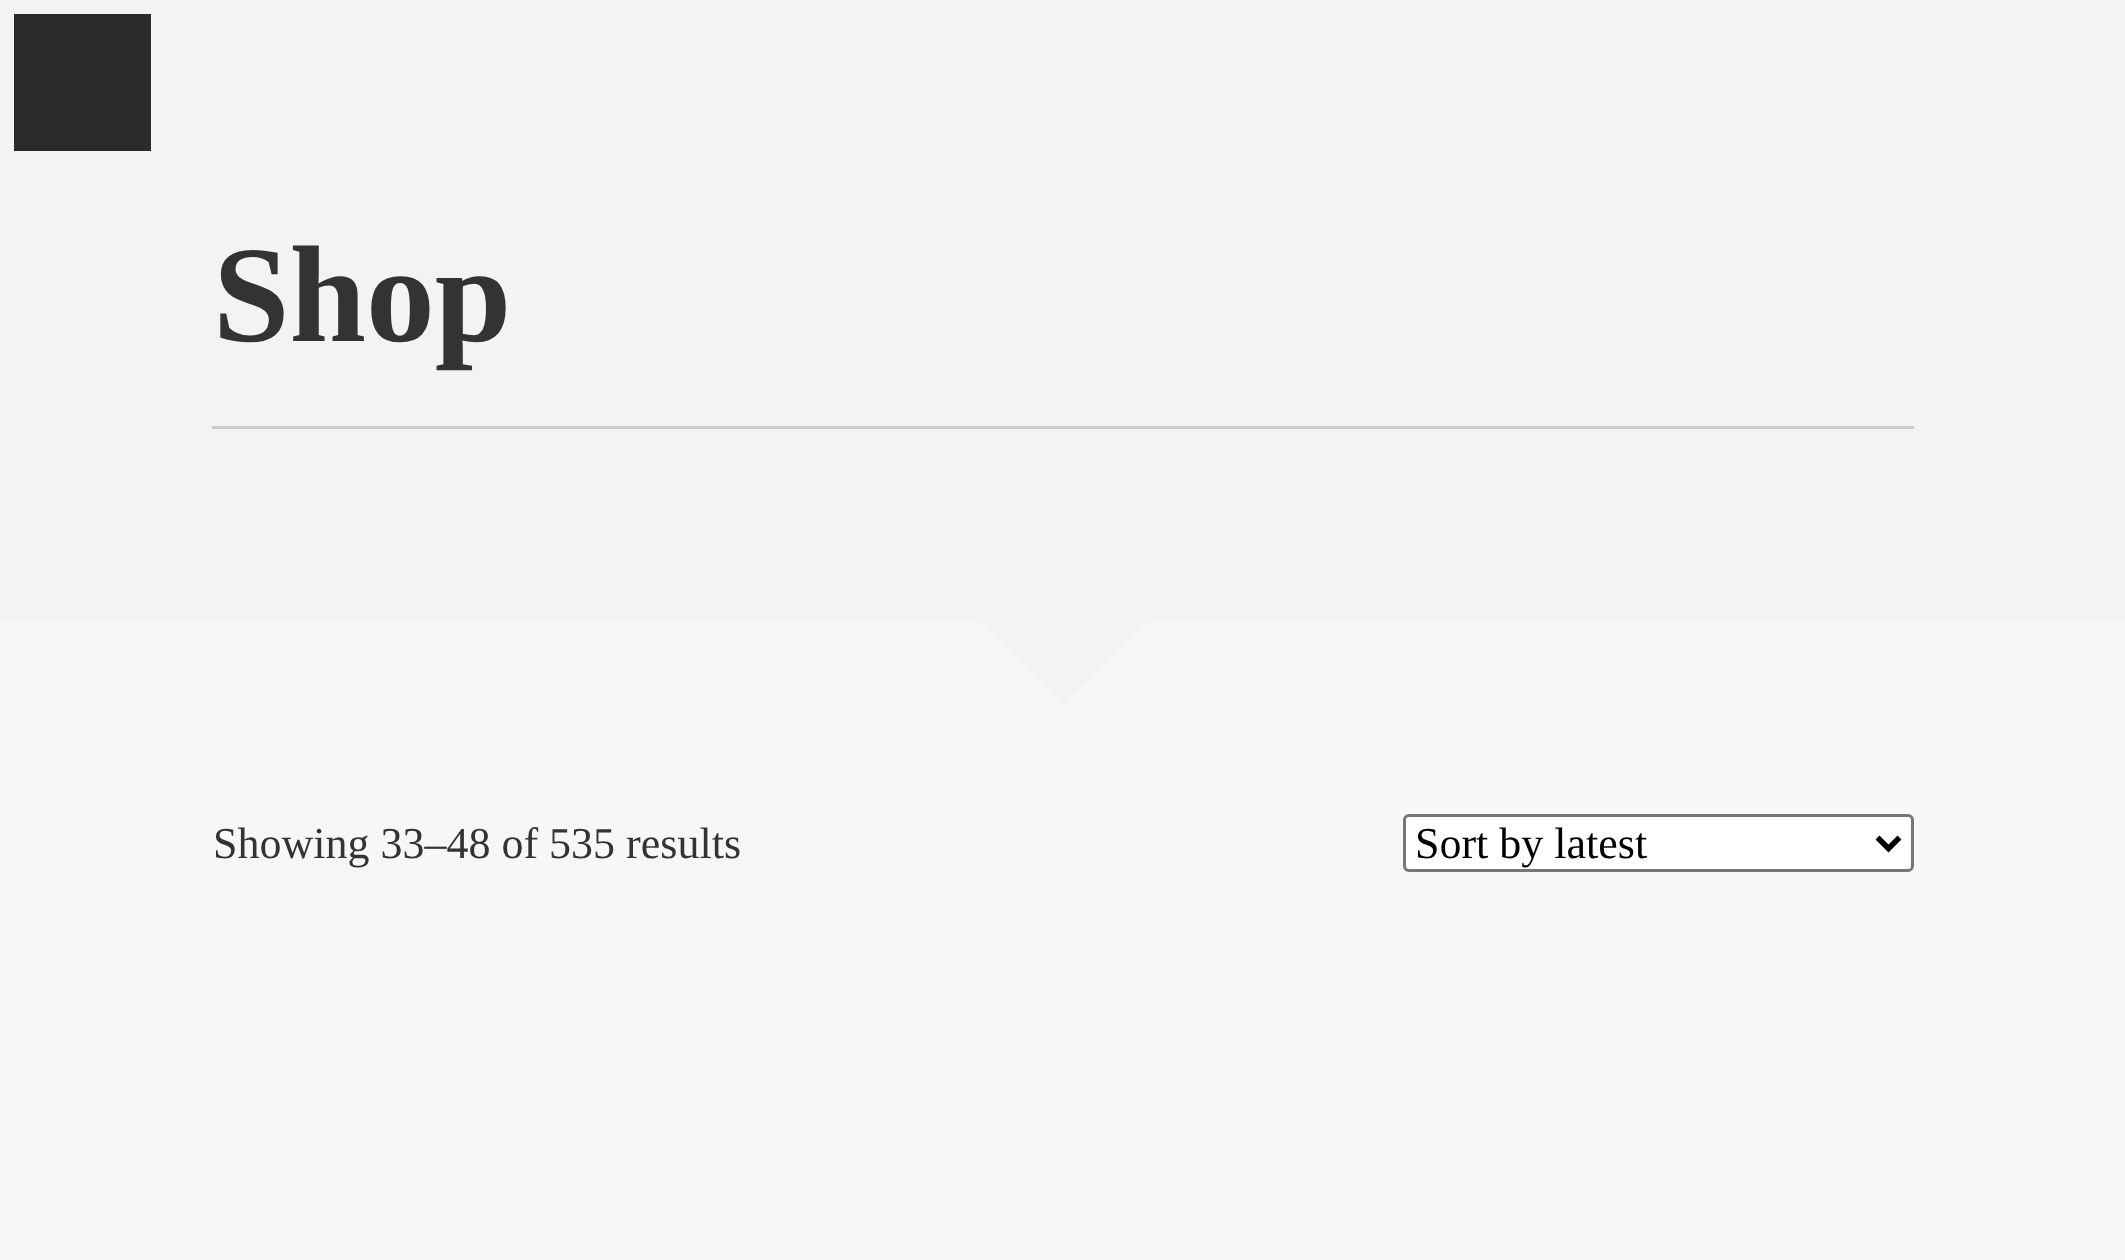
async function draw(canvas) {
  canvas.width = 2125
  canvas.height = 1260
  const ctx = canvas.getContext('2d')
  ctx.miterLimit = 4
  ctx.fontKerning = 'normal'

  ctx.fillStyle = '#f7f7f7'
  ctx.fillRect(0, 0, 2125, 1260)
  ctx.fillStyle = '#f3f3f3'
  ctx.fillRect(0, 0, 2125, 622)
  ctx.fillStyle = '#2b2b2b'
  ctx.fillRect(14, 14, 137, 137)
  ctx.fillStyle = '#ccc'
  ctx.fillRect(212, 426, 1702, 3)
  ctx.font = 'bold 137.5px Liberation Serif'
  ctx.fillStyle = '#333'
  ctx.fillText('Shop', 213, 341)
  ctx.fillStyle = '#f3f3f3'
  ctx.beginPath()
  ctx.moveTo(982, 622)
  ctx.lineTo(1147, 622)
  ctx.lineTo(1064, 704)
  ctx.closePath()
  ctx.fill()
  ctx.font = '44px Liberation Serif'
  ctx.fillStyle = '#333'
  ctx.fillText('Showing 33–48 of 535 results', 213, 858)
  ctx.fillStyle = '#fff'
  ctx.beginPath()
  ctx.roundRect(1404.5, 815.5, 508, 55, 4.5)
  ctx.fill()
  ctx.strokeStyle = '#767676'
  ctx.lineWidth = 3
  ctx.stroke()
  ctx.beginPath()
  ctx.moveTo(1877.5, 837.5)
  ctx.lineTo(1888.5, 848.5)
  ctx.lineTo(1899.5, 837.5)
  ctx.strokeStyle = '#000'
  ctx.lineWidth = 5.5
  ctx.stroke()
  ctx.fillStyle = '#000'
  ctx.fillText('Sort by latest', 1415, 858)
}

draw(document.querySelector('canvas'))
